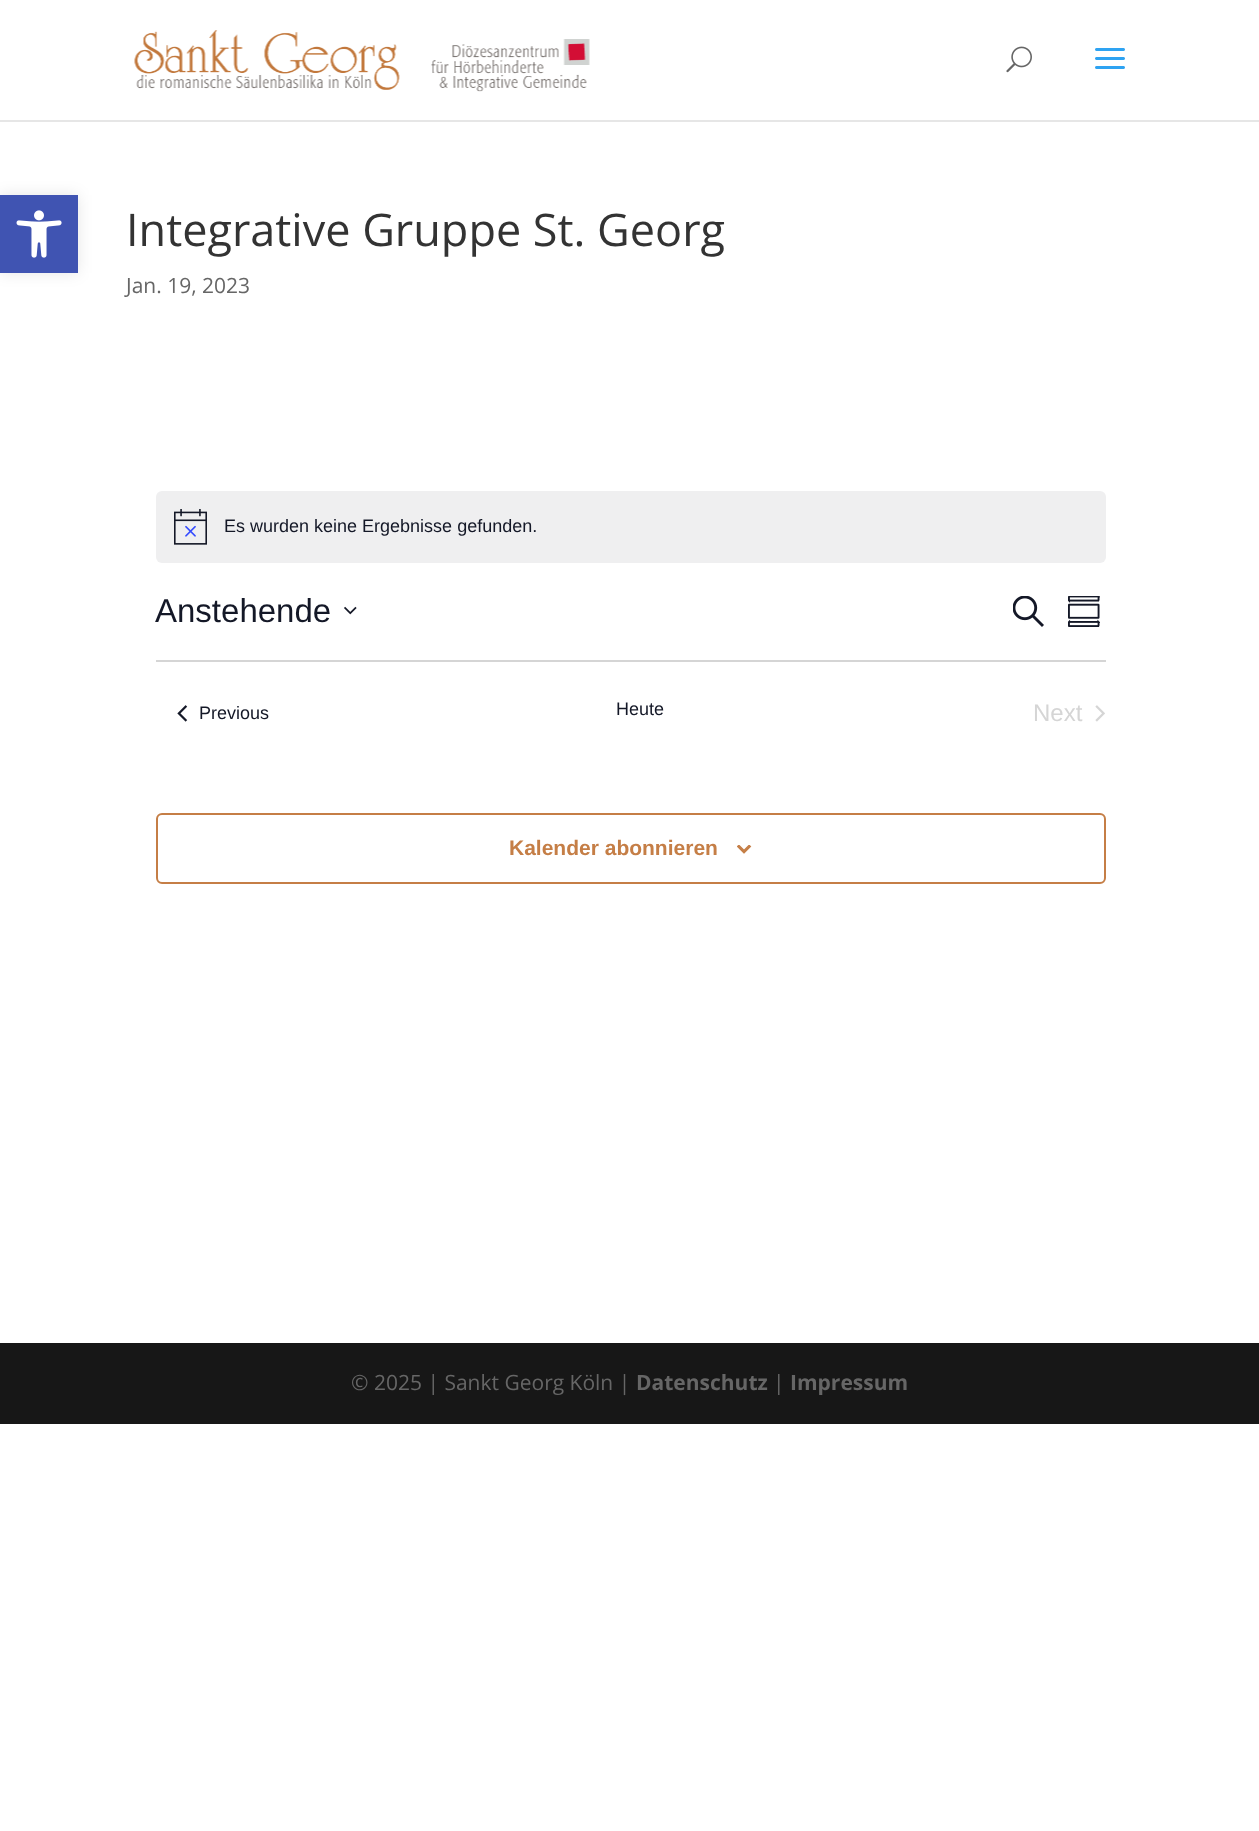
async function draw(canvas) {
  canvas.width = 1259
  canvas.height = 1831
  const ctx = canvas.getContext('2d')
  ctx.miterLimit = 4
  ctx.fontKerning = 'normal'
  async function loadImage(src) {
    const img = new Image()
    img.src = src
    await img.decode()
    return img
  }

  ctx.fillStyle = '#fff'
  ctx.fillRect(0, 0, 1259, 1831)
  ctx.fillStyle = '#0000001a'
  ctx.filter = 'blur(7.5px)'
  ctx.beginPath()
  ctx.rect(0, 195, 78, 78)
  ctx.fill()
  ctx.filter = 'none'
  ctx.fillStyle = '#4054b2'
  ctx.fillRect(0, 195, 78, 78)
  ctx.drawImage(await loadImage('image0.png'), 16, 210, 46, 48)
  ctx.fillStyle = '#e6e6e6'
  ctx.fillRect(0, 120, 1259, 2)
  ctx.drawImage(await loadImage('image1.png'), 134, 30, 456, 62)
  ctx.drawImage(await loadImage('image2.png'), 1006, 46, 26, 27)
  ctx.drawImage(await loadImage('image3.png'), 1095, 48, 30, 21)
  ctx.font = '45px Open Sans'
  ctx.fillStyle = '#333'
  ctx.fillText('Integrative Gruppe St. Georg', 126, 246)
  ctx.font = '21px Open Sans'
  ctx.fillStyle = '#666'
  ctx.fillText('Jan. 19, 2023', 126, 293)
  ctx.fillStyle = '#efeff0'
  ctx.beginPath()
  ctx.roundRect(156, 491, 950, 72, 6)
  ctx.fill()
  ctx.drawImage(await loadImage('image4.png'), 174, 509, 33, 36)
  ctx.font = '18px Liberation Sans'
  ctx.fillStyle = '#141827'
  ctx.fillText('Es wurden keine Ergebnisse gefunden.', 224, 532)
  ctx.font = '33px Liberation Sans'
  ctx.fillText('Anstehende', 155, 622)
  ctx.drawImage(await loadImage('image5.png'), 344, 606, 13, 9)
  ctx.drawImage(await loadImage('image6.png'), 1013, 596, 31, 31)
  ctx.drawImage(await loadImage('image7.png'), 1068, 596, 32, 31)
  ctx.fillStyle = '#d5d5d5'
  ctx.fillRect(156, 660, 950, 2)
  ctx.drawImage(await loadImage('image8.png'), 177, 705, 11, 17)
  ctx.font = '18px Liberation Sans'
  ctx.fillStyle = '#141827'
  ctx.fillText('Previous', 199, 719)
  ctx.fillText('Heute', 616, 715)
  ctx.font = '24px Liberation Sans'
  ctx.fillStyle = '#d5d5d5'
  ctx.fillText('Next', 1033, 721)
  ctx.drawImage(await loadImage('image9.png'), 1095, 705, 10, 17)
  ctx.beginPath()
  ctx.roundRect(157, 814, 948, 69, 5)
  ctx.strokeStyle = '#c57e46'
  ctx.lineWidth = 2
  ctx.stroke()
  ctx.font = 'bold 21px Liberation Sans'
  ctx.fillStyle = '#c57e46'
  ctx.fillText('Kalender abonnieren', 509, 855)
  ctx.drawImage(await loadImage('image10.png'), 737, 845, 15, 9)
  ctx.fillStyle = '#171717'
  ctx.fillRect(0, 1343, 1259, 81)
  ctx.font = '21px Open Sans'
  ctx.fillStyle = '#666'
  ctx.fillText('© 2025 | Sankt Georg Köln |', 351, 1390)
  ctx.font = 'bold 21px Open Sans'
  ctx.fillText('Datenschutz', 636, 1390)
  ctx.font = '21px Open Sans'
  ctx.fillText('|', 773, 1390)
  ctx.font = 'bold 21px Open Sans'
  ctx.fillText('Impressum', 790, 1390)
}

draw(document.querySelector('canvas'))
